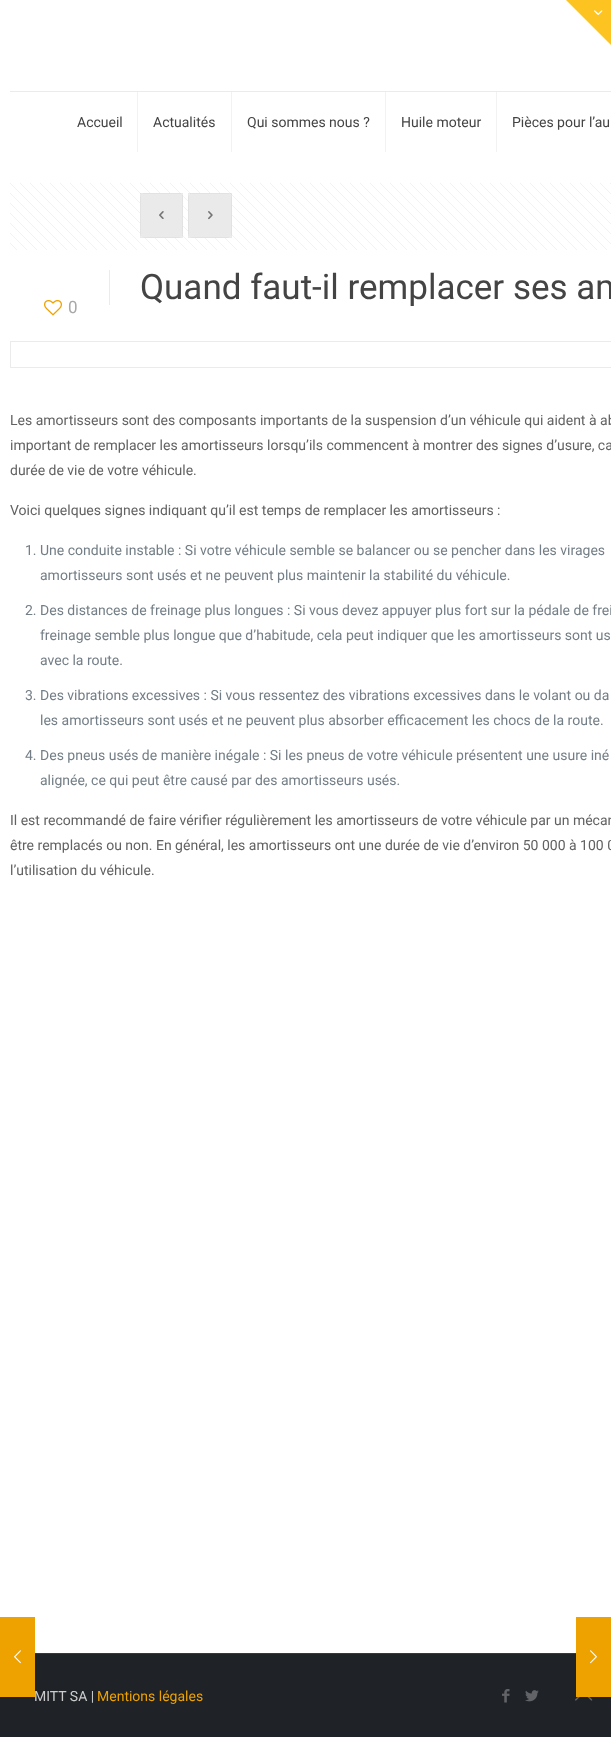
async function draw(canvas) {
  canvas.width = 611
  canvas.height = 1737
  const ctx = canvas.getContext('2d')
  ctx.miterLimit = 4
  ctx.fontKerning = 'normal'
  async function loadImage(src) {
    const img = new Image()
    img.src = src
    await img.decode()
    return img
  }

  ctx.fillStyle = '#fff'
  ctx.fillRect(0, 0, 611, 1737)
  ctx.fillStyle = '#fdc421'
  ctx.beginPath()
  ctx.moveTo(611, 0)
  ctx.lineTo(611, 45)
  ctx.lineTo(566, 0)
  ctx.closePath()
  ctx.fill()
  ctx.drawImage(await loadImage('image0.png'), 594, 10, 9, 5)
  ctx.fillStyle = '#ebebeb'
  ctx.fillRect(10, 91, 601, 1)
  ctx.fillStyle = '#f2f2f2'
  ctx.fillRect(137, 92, 1, 60)
  ctx.font = '14px Roboto'
  ctx.fillStyle = '#444'
  ctx.fillText('Accueil', 77, 127)
  ctx.fillStyle = '#f2f2f2'
  ctx.fillRect(231, 92, 1, 60)
  ctx.fillStyle = '#444'
  ctx.fillText('Actualités', 153, 127)
  ctx.fillStyle = '#f2f2f2'
  ctx.fillRect(385, 92, 1, 60)
  ctx.fillStyle = '#444'
  ctx.fillText('Qui sommes nous ?', 247, 127)
  ctx.fillStyle = '#f2f2f2'
  ctx.fillRect(496, 92, 1, 60)
  ctx.fillStyle = '#444'
  ctx.fillText('Huile moteur', 401, 127)
  ctx.fillText('Pièces pour l’au', 512, 127)
  ctx.drawImage(await loadImage('image1.png'), 10, 183, 601, 67)
  ctx.fillStyle = '#f7f7f7'
  ctx.beginPath()
  ctx.roundRect(140, 193, 43, 45, 5)
  ctx.fill()
  ctx.strokeStyle = '#00000008'
  ctx.strokeRect(140.5, 193.5, 42, 44)
  ctx.drawImage(await loadImage('image2.png'), 159, 211, 5, 8)
  ctx.fillStyle = '#0000000d'
  ctx.fillRect(140, 193, 43, 45)
  ctx.fillStyle = '#f7f7f7'
  ctx.beginPath()
  ctx.roundRect(188, 193, 44, 45, 5)
  ctx.fill()
  ctx.strokeRect(188.5, 193.5, 43, 44)
  ctx.drawImage(await loadImage('image3.png'), 208, 211, 5, 9)
  ctx.fillStyle = '#0000000d'
  ctx.fillRect(188, 193, 44, 45)
  ctx.drawImage(await loadImage('image4.png'), 44, 300, 18, 16)
  ctx.font = '17px Roboto'
  ctx.fillStyle = '#a8a8a8'
  ctx.fillText('0', 68, 313)
  ctx.fillStyle = '#ebebeb'
  ctx.fillRect(109, 270, 1, 35)
  ctx.font = '35px Roboto'
  ctx.fillStyle = '#444'
  ctx.fillText('Quand faut-il remplacer ses am', 140, 299)
  ctx.strokeStyle = '#ebebeb'
  ctx.strokeRect(10.5, 341.5, 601, 26)
  ctx.font = '14px Roboto'
  ctx.fillStyle = '#626262'
  ctx.fillText('Les amortisseurs sont des composants importants de la suspension d’un véhicule qui aident à ab', 10, 425)
  ctx.fillText('important de remplacer les amortisseurs lorsqu’ils commencent à montrer des signes d’usure, ca', 10, 450)
  ctx.fillText('durée de vie de votre véhicule.', 10, 475)
  ctx.fillText('Voici quelques signes indiquant qu’il est temps de remplacer les amortisseurs :', 10, 515)
  ctx.fillStyle = '#737e86'
  ctx.fillText('1. Une conduite instable : Si votre véhicule semble se balancer ou se pencher dans les virages', 25, 555)
  ctx.fillText('amortisseurs sont usés et ne peuvent plus maintenir la stabilité du véhicule.', 40, 580)
  ctx.fillText('2. Des distances de freinage plus longues : Si vous devez appuyer plus fort sur la pédale de frei', 25, 615)
  ctx.fillText('freinage semble plus longue que d’habitude, cela peut indiquer que les amortisseurs sont us', 40, 640)
  ctx.fillText('avec la route.', 40, 665)
  ctx.fillText('3. Des vibrations excessives : Si vous ressentez des vibrations excessives dans le volant ou da', 25, 700)
  ctx.fillText('les amortisseurs sont usés et ne peuvent plus absorber efficacement les chocs de la route.', 40, 725)
  ctx.fillText('4. Des pneus usés de manière inégale : Si les pneus de votre véhicule présentent une usure iné', 25, 760)
  ctx.fillText('alignée, ce qui peut être causé par des amortisseurs usés.', 40, 785)
  ctx.fillStyle = '#626262'
  ctx.fillText('Il est recommandé de faire vérifier régulièrement les amortisseurs de votre véhicule par un mécan', 10, 825)
  ctx.fillText('être remplacés ou non. En général, les amortisseurs ont une durée de vie d’environ 50 000 à 100 0', 10, 850)
  ctx.fillText('l’utilisation du véhicule.', 10, 875)
  ctx.fillStyle = '#1f2227'
  ctx.fillRect(0, 1654, 611, 83)
  ctx.fillStyle = '#35383d'
  ctx.fillRect(35, 1653, 541, 1)
  ctx.fillStyle = '#ccc'
  ctx.fillText('MITT SA |', 34, 1701)
  ctx.fillStyle = '#eea200'
  ctx.fillText('Mentions légales', 97, 1701)
  ctx.drawImage(await loadImage('image5.png'), 502, 1689, 8, 14)
  ctx.drawImage(await loadImage('image6.png'), 525, 1690, 14, 12)
  ctx.drawImage(await loadImage('image7.png'), 575, 1697, 18, 4)
  ctx.fillRect(0, 1617, 35, 80)
  ctx.drawImage(await loadImage('image8.png'), 14, 1650, 7, 14)
  ctx.fillRect(576, 1617, 35, 80)
  ctx.drawImage(await loadImage('image9.png'), 590, 1650, 7, 14)
}

draw(document.querySelector('canvas'))
